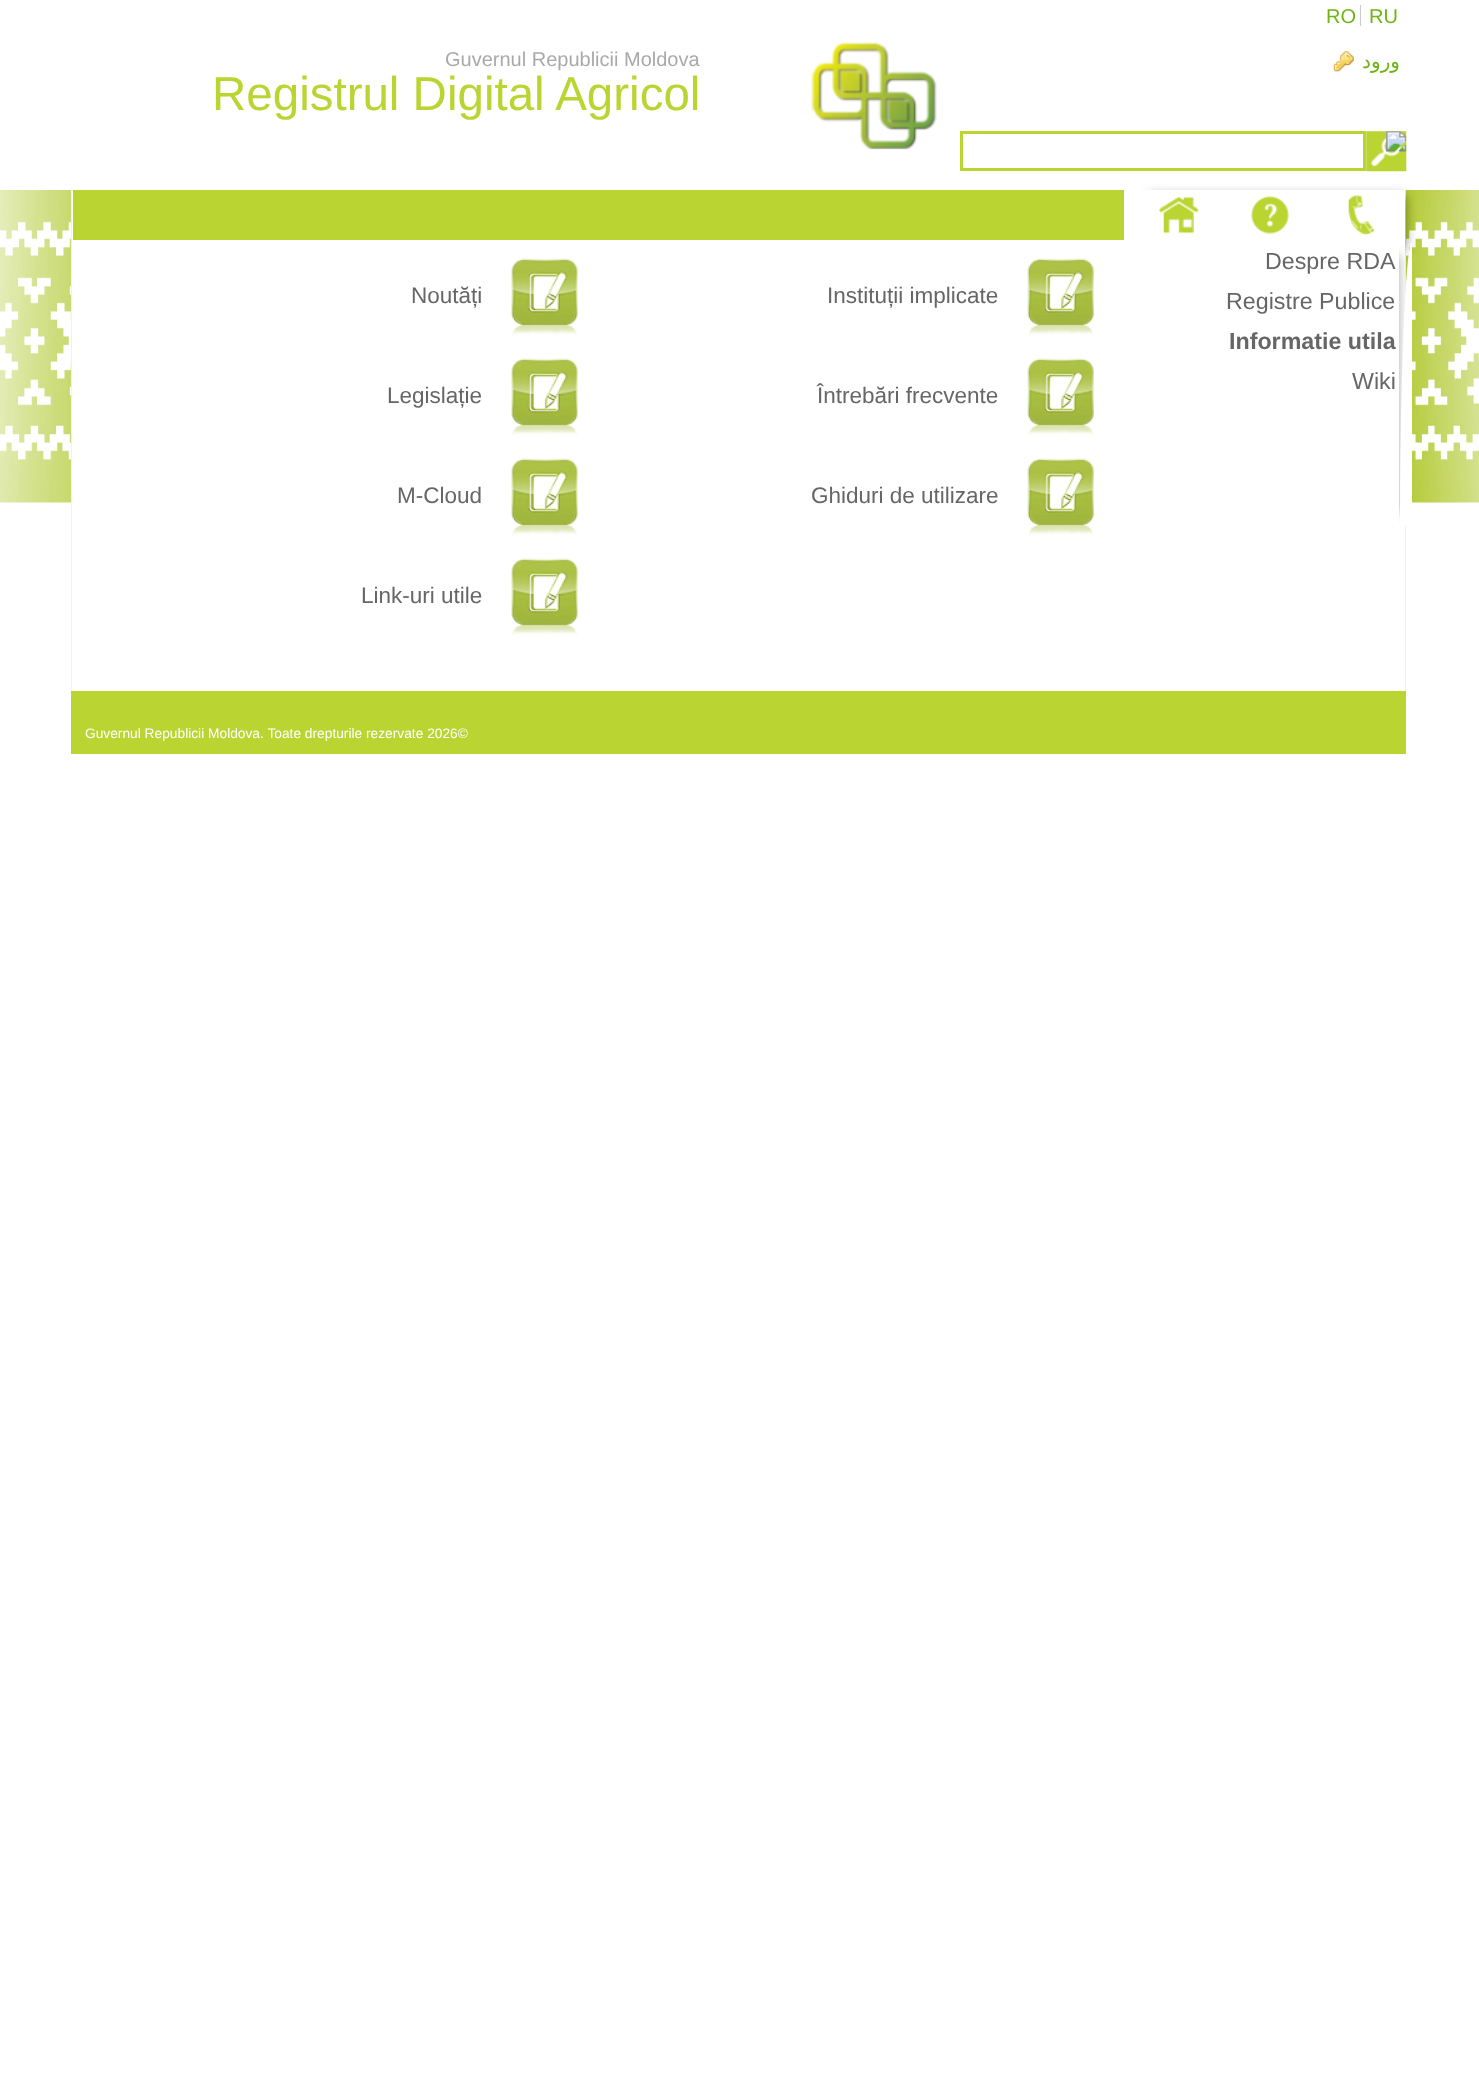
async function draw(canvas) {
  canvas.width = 1479
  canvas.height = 2098
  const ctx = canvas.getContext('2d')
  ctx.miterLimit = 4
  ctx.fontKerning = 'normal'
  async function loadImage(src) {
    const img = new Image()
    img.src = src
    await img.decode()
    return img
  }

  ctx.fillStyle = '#fff'
  ctx.fillRect(0, 0, 1479, 2098)
  ctx.drawImage(await loadImage('image9.png'), 0, 190, 1479, 313)
  ctx.fillRect(72, 190, 1333, 313)
  ctx.fillStyle = '#f1f7d6'
  ctx.fillRect(1405, 190, 1, 501)
  ctx.fillRect(71, 190, 1, 501)
  ctx.font = '20px Liberation Sans'
  ctx.fillStyle = '#6db513'
  ctx.fillText('RO', 1326, 23)
  ctx.fillStyle = '#ccc'
  ctx.fillRect(1360, 5, 1, 21)
  ctx.fillStyle = '#6db513'
  ctx.fillText('RU', 1369, 23)
  ctx.fillStyle = '#00000080'
  ctx.filter = 'blur(6px)'
  ctx.beginPath()
  ctx.rect(1149, 196, 256, 53)
  ctx.fill()
  ctx.filter = 'none'
  ctx.fillStyle = '#fff'
  ctx.fillRect(1137, 190, 268, 71)
  ctx.save()
  ctx.beginPath()
  ctx.moveTo(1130, 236)
  ctx.lineTo(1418, 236)
  ctx.lineTo(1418, 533)
  ctx.lineTo(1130, 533)
  ctx.closePath()
  ctx.moveTo(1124, 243)
  ctx.lineTo(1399, 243)
  ctx.lineTo(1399, 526)
  ctx.lineTo(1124, 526)
  ctx.closePath()
  ctx.clip('evenodd')
  ctx.fillStyle = '#00000054'
  ctx.filter = 'blur(6px)'
  ctx.beginPath()
  ctx.rect(1149, 255, 250, 259)
  ctx.fill()
  ctx.filter = 'none'
  ctx.restore()
  ctx.font = '23.25px Liberation Sans'
  ctx.fillStyle = '#666'
  ctx.fillText('Despre RDA', 1265, 269)
  ctx.fillText('Registre Publice', 1226, 309)
  ctx.font = 'bold 23.25px Liberation Sans'
  ctx.fillText('Informatie utila', 1229, 349)
  ctx.font = '23.25px Liberation Sans'
  ctx.fillText('Wiki', 1352, 389)
  ctx.fillStyle = '#fff'
  ctx.beginPath()
  ctx.moveTo(1412, 242)
  ctx.lineTo(1412, 526)
  ctx.lineTo(1400, 526)
  ctx.bezierCurveTo(1400, 370, 1406, 242, 1412, 242)
  ctx.closePath()
  ctx.fill()
  ctx.font = '22.5px Liberation Sans'
  ctx.fillStyle = '#666'
  ctx.fillText('Noutăți', 411, 303)
  ctx.drawImage(await loadImage('image0.png'), 511, 258, 67, 78)
  ctx.fillText('Legislație', 387, 403)
  ctx.drawImage(await loadImage('image0.png'), 511, 358, 67, 78)
  ctx.fillText('M-Cloud', 397, 503)
  ctx.drawImage(await loadImage('image0.png'), 511, 458, 67, 78)
  ctx.fillText('Link-uri utile', 361, 603)
  ctx.drawImage(await loadImage('image0.png'), 511, 558, 67, 78)
  ctx.fillText('Instituții implicate', 827, 303)
  ctx.drawImage(await loadImage('image1.png'), 1027, 258, 67, 78)
  ctx.fillText('Întrebări frecvente', 817, 403)
  ctx.drawImage(await loadImage('image1.png'), 1027, 358, 67, 78)
  ctx.fillText('Ghiduri de utilizare', 811, 503)
  ctx.drawImage(await loadImage('image1.png'), 1027, 458, 67, 78)
  ctx.fillStyle = '#bad532'
  ctx.fillRect(73, 190, 1051, 50)
  ctx.drawImage(await loadImage('image2.png'), 1158, 196, 41, 38)
  ctx.drawImage(await loadImage('image3.png'), 1251, 196, 38, 38)
  ctx.drawImage(await loadImage('image4.png'), 1347, 195, 28, 40)
  ctx.font = '20px Liberation Sans'
  ctx.fillStyle = '#a9a9a9'
  ctx.fillText('Guvernul Republicii Moldova', 445, 66)
  ctx.font = '47.5px Liberation Sans'
  ctx.fillStyle = '#bad532'
  ctx.fillText('Registrul Digital Agricol', 212, 110)
  ctx.drawImage(await loadImage('image5.png'), 811, 42, 126, 108)
  ctx.drawImage(await loadImage('image6.png'), 1333, 51, 21, 21)
  ctx.direction = 'rtl'
  ctx.font = '20px DejaVu Sans'
  ctx.fillStyle = '#6db513'
  ctx.fillText('ورود', 1400, 68)
  ctx.strokeStyle = '#bad532'
  ctx.lineWidth = 3
  ctx.strokeRect(961.5, 132.5, 403, 37)
  ctx.drawImage(await loadImage('image7.png'), 1366, 131, 41, 41)
  ctx.drawImage(await loadImage('image8.png'), 1386, 131, 21, 21)
  ctx.fillStyle = '#bad532'
  ctx.fillRect(71, 691, 1335, 63)
  ctx.direction = 'ltr'
  ctx.font = '13.75px Liberation Sans'
  ctx.fillStyle = '#fff'
  ctx.fillText('Guvernul Republicii Moldova. Toate drepturile rezervate 2026©', 85, 738)
}

draw(document.querySelector('canvas'))
